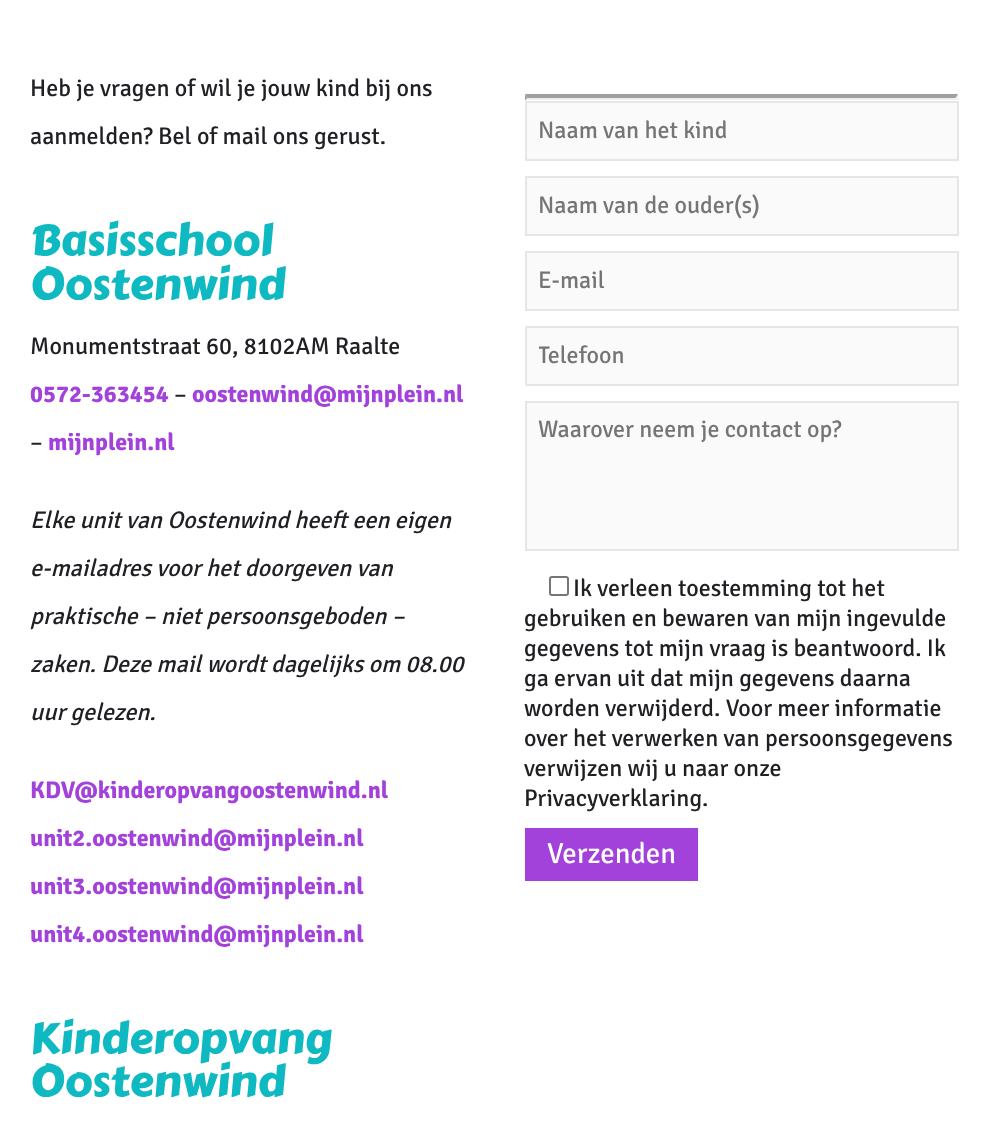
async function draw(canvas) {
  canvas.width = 988
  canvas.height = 1128
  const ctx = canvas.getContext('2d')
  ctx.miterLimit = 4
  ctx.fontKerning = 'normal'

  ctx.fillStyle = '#fff'
  ctx.fillRect(0, 0, 988, 1128)
  ctx.font = '24px Signika'
  ctx.fillStyle = '#202024'
  ctx.fillText('Heb je vragen of wil je jouw kind bij ons', 30, 96)
  ctx.fillText('aanmelden? Bel of mail ons gerust.', 30, 144)
  ctx.font = '43.25px Carter One'
  ctx.fillStyle = '#0eb9c1'
  ctx.fillText('Basisschool', 30, 255)
  ctx.fillText('Oostenwind', 30, 299)
  ctx.font = '24px Signika'
  ctx.fillStyle = '#202024'
  ctx.fillText('Monumentstraat 60, 8102AM Raalte', 30, 354)
  ctx.font = 'bold 24px Signika'
  ctx.fillStyle = '#a242db'
  ctx.fillText('0572-363454', 30, 402)
  ctx.font = '24px Signika'
  ctx.fillStyle = '#202024'
  ctx.fillText('–', 174, 402)
  ctx.font = 'bold 24px Signika'
  ctx.fillStyle = '#a242db'
  ctx.fillText('oostenwind@mijnplein.nl', 192, 402)
  ctx.font = '24px Signika'
  ctx.fillStyle = '#202024'
  ctx.fillText('–', 30, 450)
  ctx.font = 'bold 24px Signika'
  ctx.fillStyle = '#a242db'
  ctx.fillText('mijnplein.nl', 48, 450)
  ctx.font = 'italic 24px Signika'
  ctx.fillStyle = '#202024'
  ctx.fillText('Elke unit van Oostenwind heeft een eigen', 30, 528)
  ctx.fillText('e-mailadres voor het doorgeven van', 30, 576)
  ctx.fillText('praktische – niet persoonsgeboden –', 30, 624)
  ctx.fillText('zaken. Deze mail wordt dagelijks om 08.00', 30, 672)
  ctx.fillText('uur gelezen.', 30, 720)
  ctx.font = 'bold 24px Signika'
  ctx.fillStyle = '#a242db'
  ctx.fillText('KDV@kinderopvangoostenwind.nl', 30, 798)
  ctx.fillText('unit2.oostenwind@mijnplein.nl', 30, 846)
  ctx.fillText('unit3.oostenwind@mijnplein.nl', 30, 894)
  ctx.fillText('unit4.oostenwind@mijnplein.nl', 30, 942)
  ctx.font = '43.25px Carter One'
  ctx.fillStyle = '#0eb9c1'
  ctx.fillText('Kinderopvang', 30, 1053)
  ctx.fillText('Oostenwind', 30, 1096)
  ctx.fillStyle = '#9f9f9f'
  ctx.beginPath()
  ctx.moveTo(525, 94)
  ctx.lineTo(958, 94)
  ctx.lineTo(956, 98)
  ctx.lineTo(528, 98)
  ctx.closePath()
  ctx.fill()
  ctx.fillStyle = '#efefef'
  ctx.beginPath()
  ctx.moveTo(958.5, 94.5)
  ctx.lineTo(958.5, 100.5)
  ctx.lineTo(955.5, 97.5)
  ctx.closePath()
  ctx.fill()
  ctx.beginPath()
  ctx.moveTo(958, 100)
  ctx.lineTo(525, 100)
  ctx.lineTo(528, 98)
  ctx.lineTo(956, 98)
  ctx.closePath()
  ctx.fill()
  ctx.fillStyle = '#9f9f9f'
  ctx.beginPath()
  ctx.moveTo(525, 100.5)
  ctx.lineTo(525, 94.5)
  ctx.lineTo(528, 97.5)
  ctx.closePath()
  ctx.fill()
  ctx.fillStyle = '#fafafa'
  ctx.beginPath()
  ctx.rect(526, 102, 432, 58)
  ctx.fill()
  ctx.strokeStyle = '#e6e6e6'
  ctx.lineWidth = 2
  ctx.stroke()
  ctx.font = '24px Signika'
  ctx.fillStyle = '#757575'
  ctx.fillText('Naam van het kind', 538, 138)
  ctx.fillStyle = '#fafafa'
  ctx.beginPath()
  ctx.rect(526, 177, 432, 58)
  ctx.fill()
  ctx.stroke()
  ctx.fillStyle = '#757575'
  ctx.fillText('Naam van de ouder(s)', 538, 213)
  ctx.fillStyle = '#fafafa'
  ctx.beginPath()
  ctx.rect(526, 252, 432, 58)
  ctx.fill()
  ctx.stroke()
  ctx.fillStyle = '#757575'
  ctx.fillText('E-mail', 538, 288)
  ctx.fillStyle = '#fafafa'
  ctx.beginPath()
  ctx.rect(526, 327, 432, 58)
  ctx.fill()
  ctx.stroke()
  ctx.save()
  ctx.beginPath()
  ctx.rect(539, 341, 406, 30)
  ctx.clip()
  ctx.fillStyle = '#757575'
  ctx.fillText('Telefoon', 538, 363)
  ctx.restore()
  ctx.beginPath()
  ctx.rect(526, 402, 432, 148)
  ctx.fill()
  ctx.stroke()
  ctx.fillStyle = '#757575'
  ctx.fillText('Waarover neem je contact op?', 538, 437)
  ctx.beginPath()
  ctx.roundRect(550, 577, 18, 18, 2)
  ctx.strokeStyle = '#767676'
  ctx.stroke()
  ctx.fillStyle = '#202024'
  ctx.fillText('Ik verleen toestemming tot het', 573, 596)
  ctx.fillText('gebruiken en bewaren van mijn ingevulde', 524, 626)
  ctx.fillText('gegevens tot mijn vraag is beantwoord. Ik', 524, 656)
  ctx.fillText('ga ervan uit dat mijn gegevens daarna', 524, 686)
  ctx.fillText('worden verwijderd. Voor meer informatie', 524, 716)
  ctx.fillText('over het verwerken van persoonsgegevens', 524, 746)
  ctx.fillText('verwijzen wij u naar onze', 524, 776)
  ctx.fillText('Privacyverklaring.', 524, 806)
  ctx.fillStyle = '#a242db'
  ctx.fillRect(525, 828, 173, 53)
  ctx.font = '29px Signika'
  ctx.fillStyle = '#fff'
  ctx.fillText('Verzenden', 547, 863)
}

draw(document.querySelector('canvas'))
